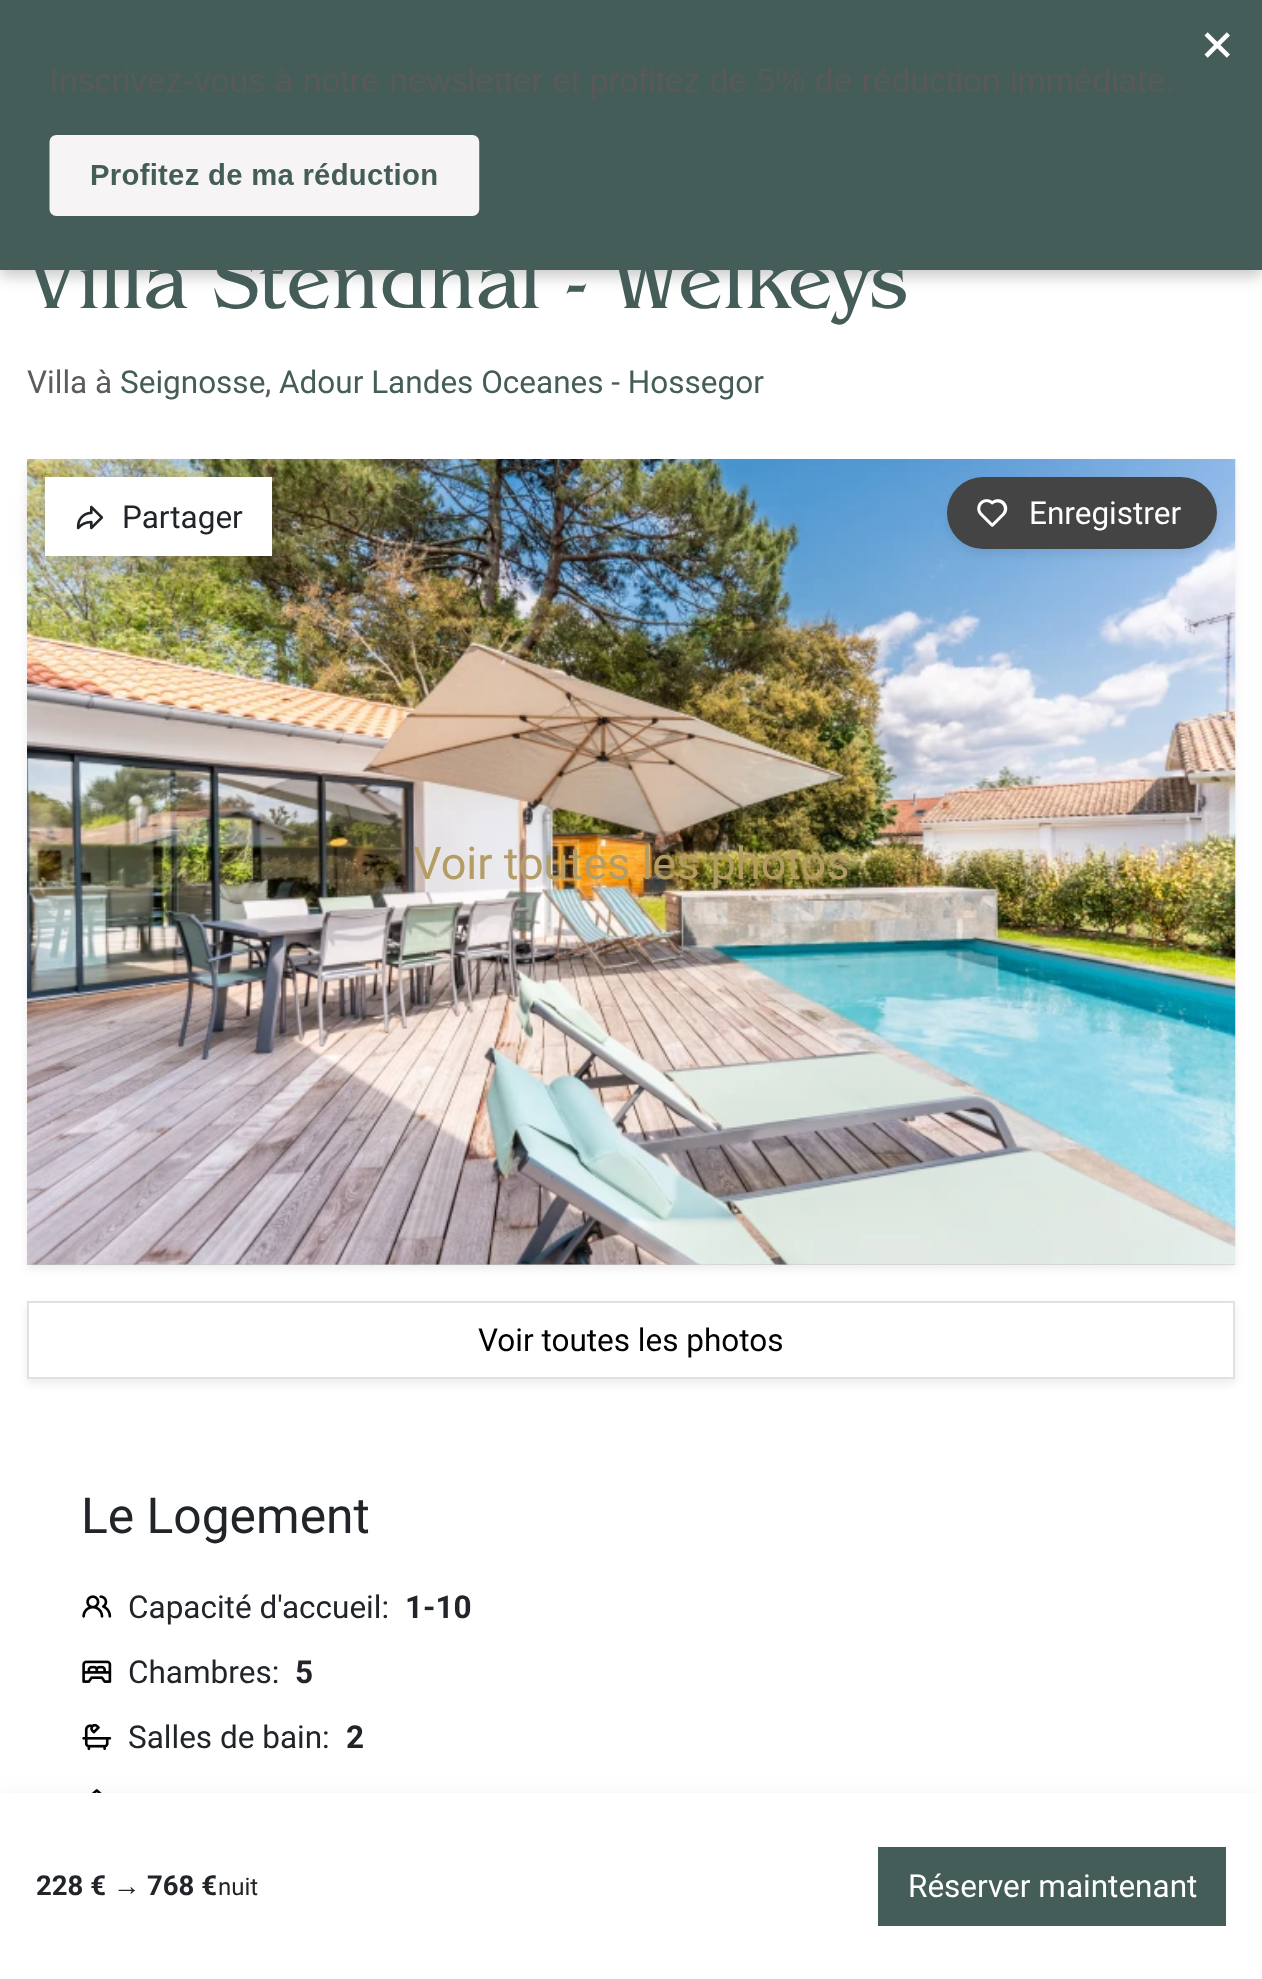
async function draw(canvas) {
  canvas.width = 1262
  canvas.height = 1979
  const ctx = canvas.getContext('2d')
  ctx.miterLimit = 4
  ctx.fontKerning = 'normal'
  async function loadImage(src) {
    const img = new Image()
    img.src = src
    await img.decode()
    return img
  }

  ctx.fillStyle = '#fff'
  ctx.fillRect(0, 0, 1262, 1979)
  ctx.fillStyle = '#00000033'
  ctx.filter = 'blur(7px)'
  ctx.beginPath()
  ctx.rect(0, 7, 1262, 270)
  ctx.fill()
  ctx.filter = 'none'
  ctx.font = '77.75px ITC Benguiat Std'
  ctx.fillStyle = '#455d58'
  ctx.fillText('Villa Stendhal - Welkeys', 27, 308)
  ctx.drawImage(await loadImage('image0.png'), 0, 0, 1262, 270)
  ctx.font = '31.5px Roboto'
  ctx.fillStyle = '#595c5f'
  ctx.fillText('Villa à', 27, 393)
  ctx.fillStyle = '#455d58'
  ctx.fillText('Seignosse', 120, 393)
  ctx.fillStyle = '#595c5f'
  ctx.fillText(',', 265, 393)
  ctx.fillStyle = '#455d58'
  ctx.fillText('Adour Landes Oceanes - Hossegor', 279, 393)
  ctx.fillStyle = '#00000012'
  ctx.filter = 'blur(4.5px)'
  ctx.beginPath()
  ctx.rect(27, 464, 1208, 805)
  ctx.fill()
  ctx.filter = 'none'
  ctx.fillStyle = '#44444440'
  ctx.fillRect(27, 1264, 1208, 1)
  ctx.drawImage(await loadImage('image2.png'), 27, 459, 1209, 806)
  ctx.fillStyle = '#00000026'
  ctx.filter = 'blur(18px)'
  ctx.beginPath()
  ctx.rect(45, 495, 227, 79)
  ctx.fill()
  ctx.filter = 'none'
  ctx.fillStyle = '#fff'
  ctx.fillRect(45, 477, 227, 79)
  ctx.drawImage(await loadImage('image1.png'), 76, 505, 28, 25)
  ctx.fillStyle = '#212529'
  ctx.fillText('Partager', 122, 528)
  ctx.fillStyle = '#00000012'
  ctx.filter = 'blur(4.5px)'
  ctx.beginPath()
  ctx.roundRect(947, 482, 270, 72, 36)
  ctx.fill()
  ctx.filter = 'none'
  ctx.fillStyle = '#444'
  ctx.beginPath()
  ctx.roundRect(947, 477, 270, 72, 36)
  ctx.fill()
  ctx.drawImage(await loadImage('image3.png'), 977, 499, 31, 28)
  ctx.fillStyle = '#fff'
  ctx.fillText('Enregistrer', 1029, 524)
  ctx.font = '45px Roboto'
  ctx.fillStyle = '#b49d65'
  ctx.fillText('Voir toutes les photos', 413, 879)
  ctx.save()
  ctx.beginPath()
  ctx.moveTo(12, 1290)
  ctx.lineTo(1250, 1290)
  ctx.lineTo(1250, 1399)
  ctx.lineTo(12, 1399)
  ctx.closePath()
  ctx.moveTo(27, 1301)
  ctx.lineTo(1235, 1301)
  ctx.lineTo(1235, 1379)
  ctx.lineTo(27, 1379)
  ctx.closePath()
  ctx.clip('evenodd')
  ctx.fillStyle = '#00000012'
  ctx.filter = 'blur(4.5px)'
  ctx.beginPath()
  ctx.rect(27, 1305, 1208, 79)
  ctx.fill()
  ctx.filter = 'none'
  ctx.restore()
  ctx.strokeStyle = '#dee2e6'
  ctx.lineWidth = 2
  ctx.strokeRect(28, 1302, 1206, 76)
  ctx.font = '31.5px Roboto'
  ctx.fillStyle = '#000'
  ctx.fillText('Voir toutes les photos', 478, 1351)
  ctx.font = '49.75px Roboto'
  ctx.fillStyle = '#212529'
  ctx.fillText('Le Logement', 81, 1533)
  ctx.drawImage(await loadImage('image4.png'), 82, 1595, 30, 23)
  ctx.font = '31.5px Roboto'
  ctx.fillText('Capacité d\'accueil:', 128, 1618)
  ctx.font = 'bold 31.5px Roboto'
  ctx.fillText('1-10', 405, 1618)
  ctx.drawImage(await loadImage('image5.png'), 82, 1660, 30, 23)
  ctx.font = '31.5px Roboto'
  ctx.fillText('Chambres:', 128, 1683)
  ctx.font = 'bold 31.5px Roboto'
  ctx.fillText('5', 295, 1683)
  ctx.drawImage(await loadImage('image6.png'), 82, 1723, 30, 28)
  ctx.font = '31.5px Roboto'
  ctx.fillText('Salles de bain:', 128, 1748)
  ctx.font = 'bold 31.5px Roboto'
  ctx.fillText('2', 346, 1748)
  ctx.drawImage(await loadImage('image7.png'), 92, 1789, 10, 4)
  ctx.fillStyle = '#00000026'
  ctx.filter = 'blur(18px)'
  ctx.beginPath()
  ctx.rect(0, 1811, 1262, 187)
  ctx.fill()
  ctx.filter = 'none'
  ctx.fillStyle = '#fff'
  ctx.fillRect(0, 1793, 1262, 186)
  ctx.font = 'bold 27.5px Roboto'
  ctx.fillStyle = '#212529'
  ctx.fillText('228 €', 36, 1895)
  ctx.font = '27.5px Liberation Sans'
  ctx.fillText('→', 113, 1895)
  ctx.font = 'bold 27.5px Roboto'
  ctx.fillText('768 €', 147, 1895)
  ctx.font = '24px Roboto'
  ctx.fillText('nuit', 218, 1895)
  ctx.fillStyle = '#455d58'
  ctx.fillRect(878, 1847, 348, 79)
  ctx.font = '31.5px Roboto'
  ctx.fillStyle = '#fff'
  ctx.fillText('Réserver maintenant', 908, 1897)
}

draw(document.querySelector('canvas'))
